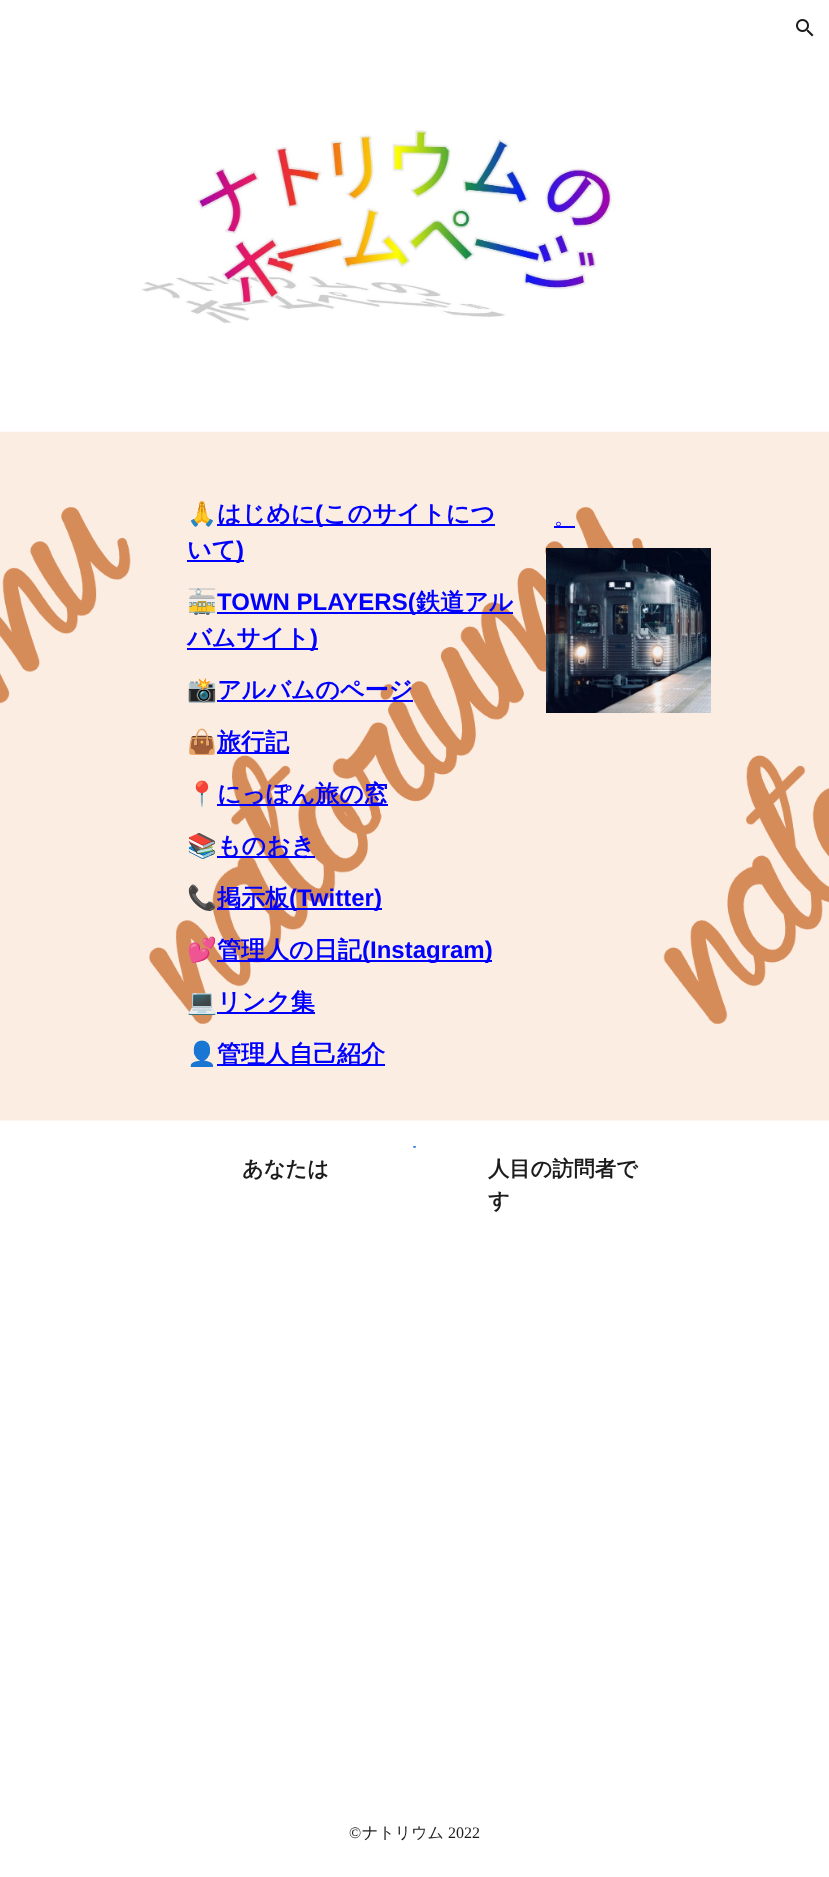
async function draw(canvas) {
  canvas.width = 829
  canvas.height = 1877
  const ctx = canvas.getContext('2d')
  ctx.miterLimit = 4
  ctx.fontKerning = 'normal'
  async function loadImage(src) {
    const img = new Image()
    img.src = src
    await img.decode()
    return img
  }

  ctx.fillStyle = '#fff'
  ctx.fillRect(0, 0, 829, 1877)
  ctx.drawImage(await loadImage('image1.png'), 0, 0, 829, 430)
  ctx.drawImage(await loadImage('image0.png'), 796, 19, 18, 18)
  ctx.drawImage(await loadImage('image2.png'), 0, 431, 829, 690)
  ctx.font = 'bold 24px Noto Color Emoji'
  ctx.fillStyle = '#00f'
  ctx.fillText('🙏', 187, 522)
  ctx.fillRect(217, 524, 278, 2)
  ctx.font = 'bold 24px WenQuanYi Zen Hei'
  ctx.fillText('はじめに', 217, 522)
  ctx.font = 'bold 24px Liberation Sans'
  ctx.fillText('(', 315, 522)
  ctx.font = 'bold 24px WenQuanYi Zen Hei'
  ctx.fillText('このサイトにつ', 323, 522)
  ctx.fillRect(187, 560, 57, 2)
  ctx.fillText('いて', 187, 558)
  ctx.font = 'bold 24px Liberation Sans'
  ctx.fillText(')', 236, 558)
  ctx.font = 'bold 24px Noto Color Emoji'
  ctx.fillText('🚋', 187, 610)
  ctx.fillRect(217, 612, 296, 2)
  ctx.font = 'bold 24px Liberation Sans'
  ctx.fillText('TOWN PLAYERS(', 217, 610)
  ctx.font = 'bold 24px WenQuanYi Zen Hei'
  ctx.fillText('鉄道アル', 416, 610)
  ctx.fillRect(187, 648, 131, 2)
  ctx.fillText('バムサイト', 187, 646)
  ctx.font = 'bold 24px Liberation Sans'
  ctx.fillText(')', 310, 646)
  ctx.font = 'bold 24px Noto Color Emoji'
  ctx.fillText('📸', 187, 698)
  ctx.fillRect(217, 700, 196, 2)
  ctx.font = 'bold 24px WenQuanYi Zen Hei'
  ctx.fillText('アルバムのページ', 217, 698)
  ctx.font = 'bold 24px Noto Color Emoji'
  ctx.fillText('👜', 187, 750)
  ctx.fillRect(217, 752, 72, 2)
  ctx.font = 'bold 24px WenQuanYi Zen Hei'
  ctx.fillText('旅行記', 217, 750)
  ctx.font = '24px Noto Color Emoji'
  ctx.fillStyle = '#000'
  ctx.fillText('📍', 187, 802)
  ctx.fillStyle = '#00f'
  ctx.fillRect(217, 804, 171, 2)
  ctx.font = 'bold 24px WenQuanYi Zen Hei'
  ctx.fillText('にっぽん旅の窓', 217, 802)
  ctx.font = '24px Noto Color Emoji'
  ctx.fillStyle = '#000'
  ctx.fillText('📚', 187, 854)
  ctx.fillStyle = '#00f'
  ctx.fillRect(217, 856, 98, 2)
  ctx.font = 'bold 24px WenQuanYi Zen Hei'
  ctx.fillText('ものおき', 217, 854)
  ctx.font = 'bold 24px Noto Color Emoji'
  ctx.fillText('📞', 187, 906)
  ctx.fillRect(217, 908, 165, 2)
  ctx.font = 'bold 24px WenQuanYi Zen Hei'
  ctx.fillText('掲示板', 217, 906)
  ctx.font = 'bold 24px Liberation Sans'
  ctx.fillText('(Twitter)', 289, 906)
  ctx.font = 'bold 24px Noto Color Emoji'
  ctx.fillText('💕', 187, 958)
  ctx.fillRect(217, 960, 275, 2)
  ctx.font = 'bold 24px WenQuanYi Zen Hei'
  ctx.fillText('管理人の日記', 217, 958)
  ctx.font = 'bold 24px Liberation Sans'
  ctx.fillText('(Instagram)', 362, 958)
  ctx.font = 'bold 24px Noto Color Emoji'
  ctx.fillText('💻', 187, 1010)
  ctx.fillRect(217, 1012, 98, 2)
  ctx.font = 'bold 24px WenQuanYi Zen Hei'
  ctx.fillText('リンク集', 217, 1010)
  ctx.font = 'bold 24px Noto Color Emoji'
  ctx.fillText('👤', 187, 1062)
  ctx.fillRect(217, 1064, 168, 2)
  ctx.font = 'bold 24px WenQuanYi Zen Hei'
  ctx.fillText('管理人自己紹介', 217, 1062)
  ctx.fillRect(554, 526, 21, 2)
  ctx.font = '500 21.25px WenQuanYi Zen Hei'
  ctx.fillText('。', 554, 524)
  ctx.drawImage(await loadImage('image3.png'), 546, 548, 165, 165)
  ctx.save()
  ctx.beginPath()
  ctx.rect(400, 1146, 14, 25)
  ctx.clip()
  ctx.beginPath()
  ctx.moveTo(413.5, 1146)
  ctx.bezierCurveTo(430, 1144.5, 432, 1169.5, 415.5, 1171)
  ctx.strokeStyle = '#4486f4'
  ctx.lineWidth = 3
  ctx.stroke()
  ctx.restore()
  ctx.save()
  ctx.beginPath()
  ctx.rect(413, 1146, 3, 25)
  ctx.clip()
  ctx.beginPath()
  ctx.moveTo(406, 1167)
  ctx.bezierCurveTo(396, 1156.5, 409, 1139, 421, 1147.5)
  ctx.bezierCurveTo(424, 1149.5, 425.5, 1152.5, 426.5, 1155.5)
  ctx.bezierCurveTo(427, 1159.5, 426, 1164, 423, 1167)
  ctx.strokeStyle = '#4486f4'
  ctx.lineWidth = 3
  ctx.stroke()
  ctx.restore()
  ctx.save()
  ctx.beginPath()
  ctx.rect(414, 1146, 14, 25)
  ctx.clip()
  ctx.beginPath()
  ctx.moveTo(413.5, 1171)
  ctx.bezierCurveTo(397, 1169.5, 399, 1144.5, 415.5, 1146)
  ctx.strokeStyle = '#4486f4'
  ctx.lineWidth = 3
  ctx.stroke()
  ctx.restore()
  ctx.save()
  ctx.beginPath()
  ctx.rect(400, 1146, 14, 25)
  ctx.clip()
  ctx.beginPath()
  ctx.moveTo(413.5, 1146)
  ctx.bezierCurveTo(430, 1144.5, 432, 1169.5, 415.5, 1171)
  ctx.strokeStyle = '#5591f5'
  ctx.lineWidth = 3
  ctx.stroke()
  ctx.restore()
  ctx.save()
  ctx.beginPath()
  ctx.rect(414, 1146, 14, 25)
  ctx.clip()
  ctx.beginPath()
  ctx.moveTo(413.5, 1171)
  ctx.bezierCurveTo(397, 1169.5, 399, 1144.5, 415.5, 1146)
  ctx.strokeStyle = '#4486f4'
  ctx.lineWidth = 3
  ctx.stroke()
  ctx.restore()
  ctx.save()
  ctx.beginPath()
  ctx.rect(400, 1146, 14, 25)
  ctx.clip()
  ctx.beginPath()
  ctx.moveTo(413.5, 1146)
  ctx.bezierCurveTo(430, 1144.5, 432, 1169.5, 415.5, 1171)
  ctx.strokeStyle = '#5591f5'
  ctx.lineWidth = 3
  ctx.stroke()
  ctx.restore()
  ctx.save()
  ctx.beginPath()
  ctx.rect(414, 1146, 14, 25)
  ctx.clip()
  ctx.beginPath()
  ctx.moveTo(413.5, 1171)
  ctx.bezierCurveTo(397, 1169.5, 399, 1144.5, 415.5, 1146)
  ctx.strokeStyle = '#4486f4'
  ctx.lineWidth = 3
  ctx.stroke()
  ctx.restore()
  ctx.save()
  ctx.beginPath()
  ctx.rect(400, 1146, 14, 25)
  ctx.clip()
  ctx.beginPath()
  ctx.moveTo(413.5, 1146)
  ctx.bezierCurveTo(430, 1144.5, 432, 1169.5, 415.5, 1171)
  ctx.strokeStyle = '#5591f5'
  ctx.lineWidth = 3
  ctx.stroke()
  ctx.restore()
  ctx.save()
  ctx.beginPath()
  ctx.rect(414, 1146, 14, 25)
  ctx.clip()
  ctx.beginPath()
  ctx.moveTo(413.5, 1171)
  ctx.bezierCurveTo(397, 1169.5, 399, 1144.5, 415.5, 1146)
  ctx.strokeStyle = '#4486f4'
  ctx.lineWidth = 3
  ctx.stroke()
  ctx.restore()
  ctx.font = 'bold 21.25px WenQuanYi Zen Hei'
  ctx.fillStyle = '#1c1c1c'
  ctx.fillText('あなたは', 242, 1176)
  ctx.fillText('人目の訪問者で', 488, 1176)
  ctx.fillText('す', 488, 1208)
  ctx.font = '16px Liberation Serif'
  ctx.fillText('©', 349, 1838)
  ctx.font = '500 16px WenQuanYi Zen Hei'
  ctx.fillText('ナトリウム', 362, 1838)
  ctx.font = '16px Liberation Serif'
  ctx.fillText('2022', 448, 1838)
}

draw(document.querySelector('canvas'))
